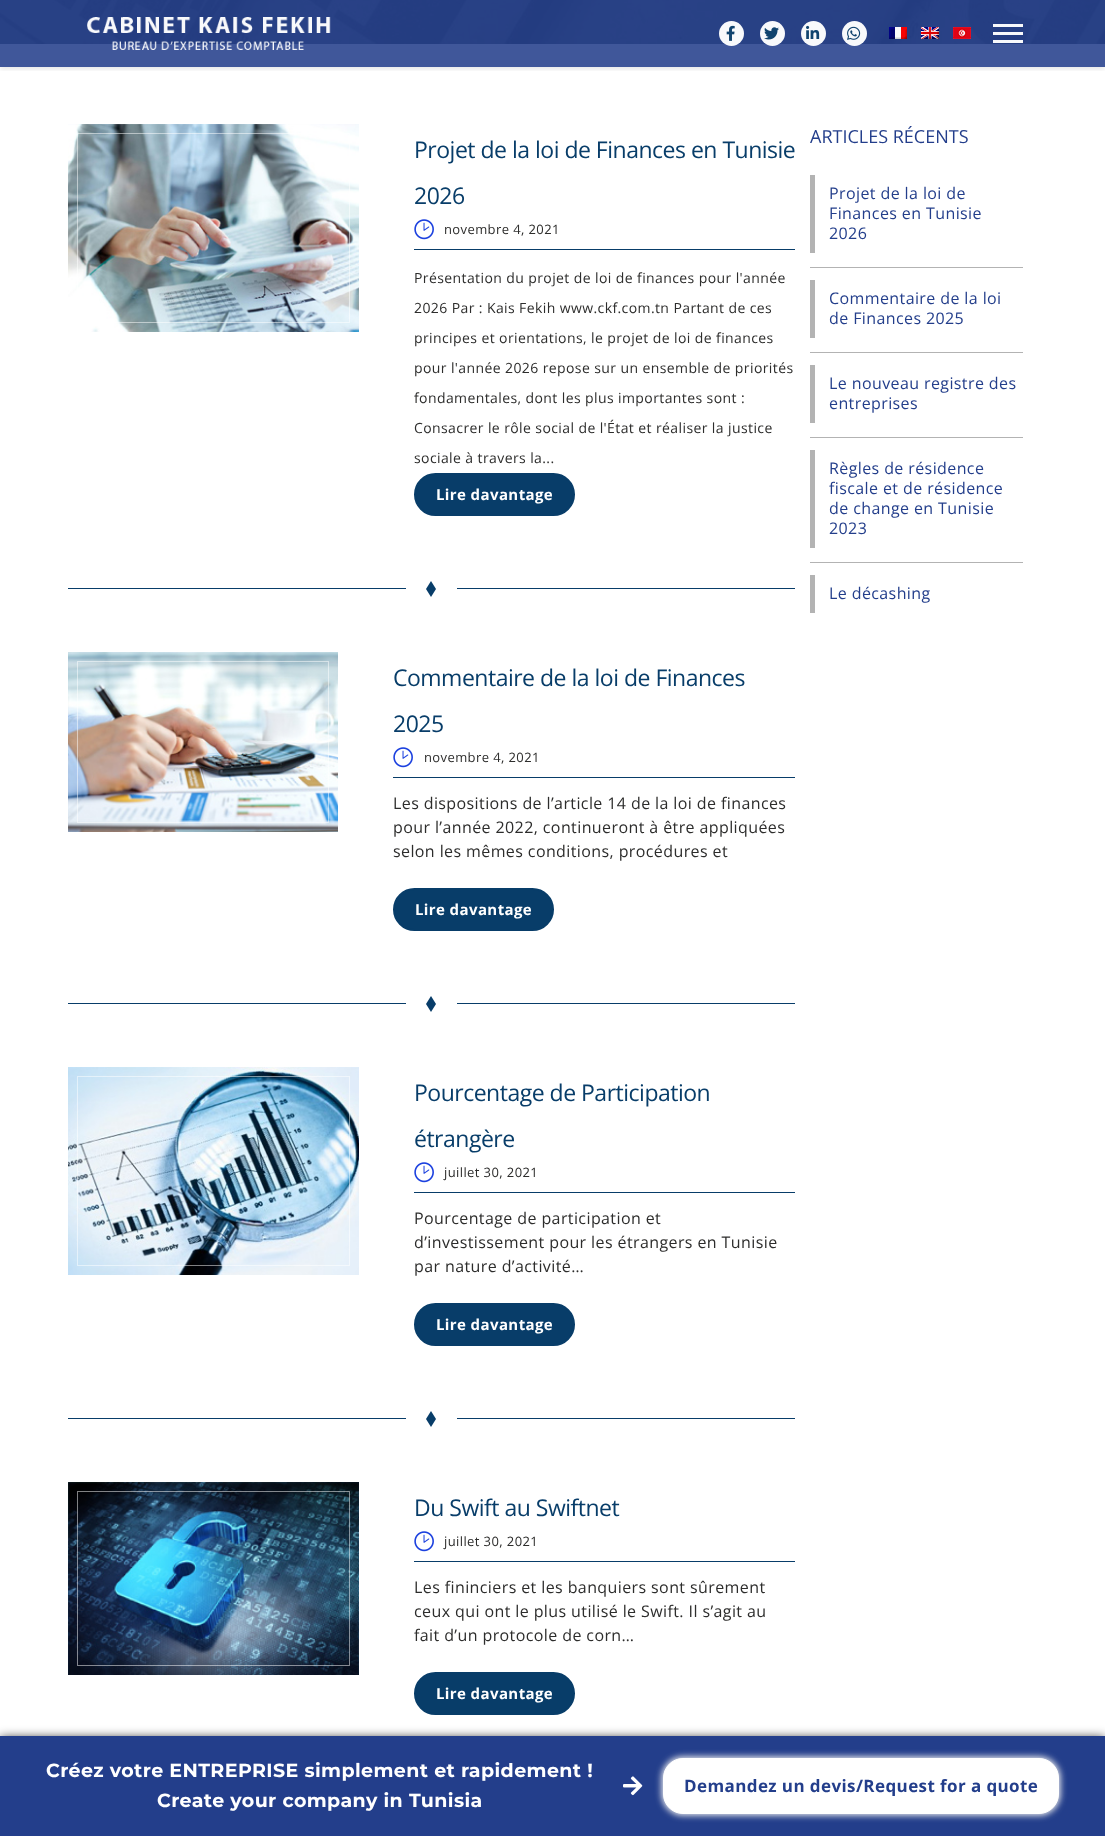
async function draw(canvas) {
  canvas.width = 1105
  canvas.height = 1836
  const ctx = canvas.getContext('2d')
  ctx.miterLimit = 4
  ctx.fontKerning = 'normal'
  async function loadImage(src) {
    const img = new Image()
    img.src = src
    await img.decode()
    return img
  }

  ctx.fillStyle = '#fff'
  ctx.fillRect(0, 0, 1105, 1836)
  ctx.fillStyle = '#40579a'
  ctx.fillRect(0, 44, 1105, 23)
  ctx.drawImage(await loadImage('image8.png'), 0, 0, 1105, 44)
  ctx.save()
  ctx.beginPath()
  ctx.rect(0, 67, 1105, 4)
  ctx.clip()
  ctx.fillStyle = '#0808081a'
  ctx.filter = 'blur(2.5px)'
  ctx.beginPath()
  ctx.rect(0, 2, 1105, 67)
  ctx.fill()
  ctx.filter = 'none'
  ctx.restore()
  ctx.drawImage(await loadImage('image0.png'), 87, 17, 244, 33)
  ctx.fillStyle = '#fffffff7'
  ctx.beginPath()
  ctx.arc(731.5, 33.5, 12.5, 0, 2 * Math.PI)
  ctx.fill()
  ctx.drawImage(await loadImage('image1.png'), 726, 25, 9, 16)
  ctx.beginPath()
  ctx.arc(772.5, 33.5, 12.5, 0, 2 * Math.PI)
  ctx.fill()
  ctx.drawImage(await loadImage('image2.png'), 764, 27, 15, 13)
  ctx.beginPath()
  ctx.arc(813.5, 33.5, 12.5, 0, 2 * Math.PI)
  ctx.fill()
  ctx.drawImage(await loadImage('image3.png'), 806, 25, 14, 14)
  ctx.beginPath()
  ctx.arc(854.5, 33.5, 12.5, 0, 2 * Math.PI)
  ctx.fill()
  ctx.drawImage(await loadImage('image4.png'), 847, 26, 14, 14)
  ctx.drawImage(await loadImage('image5.png'), 889, 27, 18, 12)
  ctx.drawImage(await loadImage('image6.png'), 921, 27, 18, 12)
  ctx.drawImage(await loadImage('image7.png'), 953, 27, 18, 12)
  ctx.fillStyle = '#f8f9fb'
  ctx.fillRect(993, 24, 30, 3)
  ctx.fillRect(993, 32, 30, 3)
  ctx.fillRect(993, 40, 30, 3)
  ctx.drawImage(await loadImage('image9.png'), 68, 124, 291, 208)
  ctx.strokeStyle = '#ffffff80'
  ctx.strokeRect(77.5, 133.5, 272, 189)
  ctx.letterSpacing = '-0.5px'
  ctx.font = '23px Open Sans'
  ctx.fillStyle = '#083d69'
  ctx.fillText('Projet de la loi de Finances en Tunisie', 414, 158)
  ctx.fillText('2026', 414, 204)
  ctx.fillRect(414, 249, 381, 1)
  ctx.drawImage(await loadImage('image10.png'), 414, 219, 20, 21)
  ctx.letterSpacing = '0.4px'
  ctx.font = '13px Open Sans'
  ctx.fillStyle = '#2d2d2c'
  ctx.fillText('novembre 4, 2021', 444, 234)
  ctx.font = '14px Open Sans'
  ctx.fillText('Présentation du projet de loi de finances pour l\'année', 414, 283)
  ctx.fillText('2026 Par : Kais Fekih www.ckf.com.tn Partant de ces', 414, 313)
  ctx.fillText('principes et orientations, le projet de loi de finances', 414, 343)
  ctx.fillText('pour l\'année 2026 repose sur un ensemble de priorités', 414, 373)
  ctx.fillText('fondamentales, dont les plus importantes sont :', 414, 403)
  ctx.fillText('Consacrer le rôle social de l\'État et réaliser la justice', 414, 433)
  ctx.fillText('sociale à travers la...', 414, 463)
  ctx.fillStyle = '#083d69'
  ctx.beginPath()
  ctx.roundRect(415, 474, 159, 41, 20.5)
  ctx.fill()
  ctx.strokeStyle = '#083d69'
  ctx.lineWidth = 2
  ctx.stroke()
  ctx.font = 'bold 15px Open Sans'
  ctx.fillStyle = '#fff'
  ctx.fillText('Lire davantage', 436, 500)
  ctx.fillStyle = '#083d69'
  ctx.fillRect(68, 588, 338, 1)
  ctx.beginPath()
  ctx.moveTo(426, 589)
  ctx.lineTo(431, 581)
  ctx.lineTo(436, 589)
  ctx.lineTo(431, 597)
  ctx.closePath()
  ctx.fill()
  ctx.fillRect(457, 588, 338, 1)
  ctx.drawImage(await loadImage('image11.png'), 68, 652, 270, 180)
  ctx.strokeStyle = '#ffffff80'
  ctx.lineWidth = 1
  ctx.strokeRect(77.5, 661.5, 251, 161)
  ctx.letterSpacing = '-0.5px'
  ctx.font = '23px Open Sans'
  ctx.fillText('Commentaire de la loi de Finances', 393, 686)
  ctx.fillText('2025', 393, 732)
  ctx.fillRect(393, 777, 402, 1)
  ctx.drawImage(await loadImage('image10.png'), 393, 747, 20, 21)
  ctx.letterSpacing = '0.4px'
  ctx.font = '13px Open Sans'
  ctx.fillStyle = '#2d2d2c'
  ctx.fillText('novembre 4, 2021', 424, 762)
  ctx.font = '16px Open Sans'
  ctx.fillText('Les dispositions de l’article 14 de la loi de finances', 393, 809)
  ctx.fillText('pour l’année 2022, continueront à être appliquées', 393, 833)
  ctx.fillText('selon les mêmes conditions, procédures et', 393, 857)
  ctx.fillStyle = '#083d69'
  ctx.beginPath()
  ctx.roundRect(394, 889, 159, 41, 20.5)
  ctx.fill()
  ctx.strokeStyle = '#083d69'
  ctx.lineWidth = 2
  ctx.stroke()
  ctx.font = 'bold 15px Open Sans'
  ctx.fillStyle = '#fff'
  ctx.fillText('Lire davantage', 415, 915)
  ctx.fillStyle = '#083d69'
  ctx.fillRect(68, 1003, 338, 1)
  ctx.beginPath()
  ctx.moveTo(426, 1004)
  ctx.lineTo(431, 996)
  ctx.lineTo(436, 1004)
  ctx.lineTo(431, 1012)
  ctx.closePath()
  ctx.fill()
  ctx.fillRect(457, 1003, 338, 1)
  ctx.drawImage(await loadImage('image12.png'), 68, 1067, 291, 208)
  ctx.strokeStyle = '#ffffff80'
  ctx.lineWidth = 1
  ctx.strokeRect(77.5, 1076.5, 272, 189)
  ctx.letterSpacing = '-0.5px'
  ctx.font = '23px Open Sans'
  ctx.fillText('Pourcentage de Participation', 414, 1101)
  ctx.fillText('étrangère', 414, 1147)
  ctx.fillRect(414, 1192, 381, 1)
  ctx.drawImage(await loadImage('image10.png'), 414, 1162, 20, 21)
  ctx.letterSpacing = '0.4px'
  ctx.font = '13px Open Sans'
  ctx.fillStyle = '#2d2d2c'
  ctx.fillText('juillet 30, 2021', 444, 1177)
  ctx.font = '16px Open Sans'
  ctx.fillText('Pourcentage de participation et', 414, 1224)
  ctx.fillText('d’investissement pour les étrangers en Tunisie', 414, 1248)
  ctx.fillText('par nature d’activité…', 414, 1272)
  ctx.fillStyle = '#083d69'
  ctx.beginPath()
  ctx.roundRect(415, 1304, 159, 41, 20.5)
  ctx.fill()
  ctx.strokeStyle = '#083d69'
  ctx.lineWidth = 2
  ctx.stroke()
  ctx.font = 'bold 15px Open Sans'
  ctx.fillStyle = '#fff'
  ctx.fillText('Lire davantage', 436, 1330)
  ctx.fillStyle = '#083d69'
  ctx.fillRect(68, 1418, 338, 1)
  ctx.beginPath()
  ctx.moveTo(426, 1419)
  ctx.lineTo(431, 1411)
  ctx.lineTo(436, 1419)
  ctx.lineTo(431, 1427)
  ctx.closePath()
  ctx.fill()
  ctx.fillRect(457, 1418, 338, 1)
  ctx.drawImage(await loadImage('image13.png'), 68, 1482, 291, 193)
  ctx.strokeStyle = '#ffffff80'
  ctx.lineWidth = 1
  ctx.strokeRect(77.5, 1491.5, 272, 174)
  ctx.letterSpacing = '-0.5px'
  ctx.font = '23px Open Sans'
  ctx.fillText('Du Swift au Swiftnet', 414, 1516)
  ctx.fillRect(414, 1561, 381, 1)
  ctx.drawImage(await loadImage('image10.png'), 414, 1531, 20, 21)
  ctx.letterSpacing = '0.4px'
  ctx.font = '13px Open Sans'
  ctx.fillStyle = '#2d2d2c'
  ctx.fillText('juillet 30, 2021', 444, 1546)
  ctx.font = '16px Open Sans'
  ctx.fillText('Les fininciers et les banquiers sont sûrement', 414, 1593)
  ctx.fillText('ceux qui ont le plus utilisé le Swift. Il s’agit au', 414, 1617)
  ctx.fillText('fait d’un protocole de corn…', 414, 1641)
  ctx.fillStyle = '#083d69'
  ctx.beginPath()
  ctx.roundRect(415, 1673, 159, 41, 20.5)
  ctx.fill()
  ctx.strokeStyle = '#083d69'
  ctx.lineWidth = 2
  ctx.stroke()
  ctx.font = 'bold 15px Open Sans'
  ctx.fillStyle = '#fff'
  ctx.fillText('Lire davantage', 436, 1699)
  ctx.letterSpacing = '0px'
  ctx.font = '18px Open Sans'
  ctx.fillStyle = '#233e8b'
  ctx.fillText('ARTICLES RÉCENTS', 810, 143)
  ctx.fillStyle = '#b3b3b3'
  ctx.fillRect(810, 175, 5, 78)
  ctx.letterSpacing = '0.4px'
  ctx.font = '16px Open Sans'
  ctx.fillStyle = '#233e8b'
  ctx.fillText('Projet de la loi de', 829, 199)
  ctx.fillText('Finances en Tunisie', 829, 219)
  ctx.fillText('2026', 829, 239)
  ctx.fillStyle = '#b3b3b3'
  ctx.fillRect(810, 267, 213, 1)
  ctx.fillRect(810, 280, 5, 58)
  ctx.fillStyle = '#233e8b'
  ctx.fillText('Commentaire de la loi', 829, 304)
  ctx.fillText('de Finances 2025', 829, 324)
  ctx.fillStyle = '#b3b3b3'
  ctx.fillRect(810, 352, 213, 1)
  ctx.fillRect(810, 365, 5, 58)
  ctx.fillStyle = '#233e8b'
  ctx.fillText('Le nouveau registre des', 829, 389)
  ctx.fillText('entreprises', 829, 409)
  ctx.fillStyle = '#b3b3b3'
  ctx.fillRect(810, 437, 213, 1)
  ctx.fillRect(810, 450, 5, 98)
  ctx.fillStyle = '#233e8b'
  ctx.fillText('Règles de résidence', 829, 474)
  ctx.fillText('fiscale et de résidence', 829, 494)
  ctx.fillText('de change en Tunisie', 829, 514)
  ctx.fillText('2023', 829, 534)
  ctx.fillStyle = '#b3b3b3'
  ctx.fillRect(810, 562, 213, 1)
  ctx.fillRect(810, 575, 5, 38)
  ctx.fillStyle = '#233e8b'
  ctx.fillText('Le décashing', 829, 599)
  ctx.fillStyle = '#000000e6'
  ctx.filter = 'blur(5.5px)'
  ctx.beginPath()
  ctx.rect(0, 1738, 1105, 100)
  ctx.fill()
  ctx.filter = 'none'
  ctx.fillStyle = '#233e8b'
  ctx.fillRect(0, 1736, 1105, 100)
  ctx.font = 'bold 19px Montserrat'
  ctx.fillStyle = '#fff'
  ctx.fillText('Créez votre ENTREPRISE simplement et rapidement !', 46, 1777)
  ctx.fillText('Create your company in Tunisia', 157, 1807)
  ctx.drawImage(await loadImage('image14.png'), 623, 1776, 20, 20)
  ctx.fillStyle = '#2f4586'
  ctx.filter = 'blur(2px)'
  ctx.beginPath()
  ctx.roundRect(661, 1756, 400, 60, 22)
  ctx.fill()
  ctx.filter = 'none'
  ctx.fillStyle = '#fff'
  ctx.filter = 'blur(3.5px)'
  ctx.beginPath()
  ctx.roundRect(662, 1757, 398, 58, 21)
  ctx.fill()
  ctx.filter = 'none'
  ctx.beginPath()
  ctx.roundRect(663.5, 1758.5, 395, 55, 19.5)
  ctx.fill()
  ctx.strokeStyle = '#fff'
  ctx.lineWidth = 1
  ctx.stroke()
  ctx.font = 'bold 17px Open Sans'
  ctx.fillStyle = '#233e8b'
  ctx.fillText('Demandez un devis/Request for a quote', 684, 1792)
}

draw(document.querySelector('canvas'))
